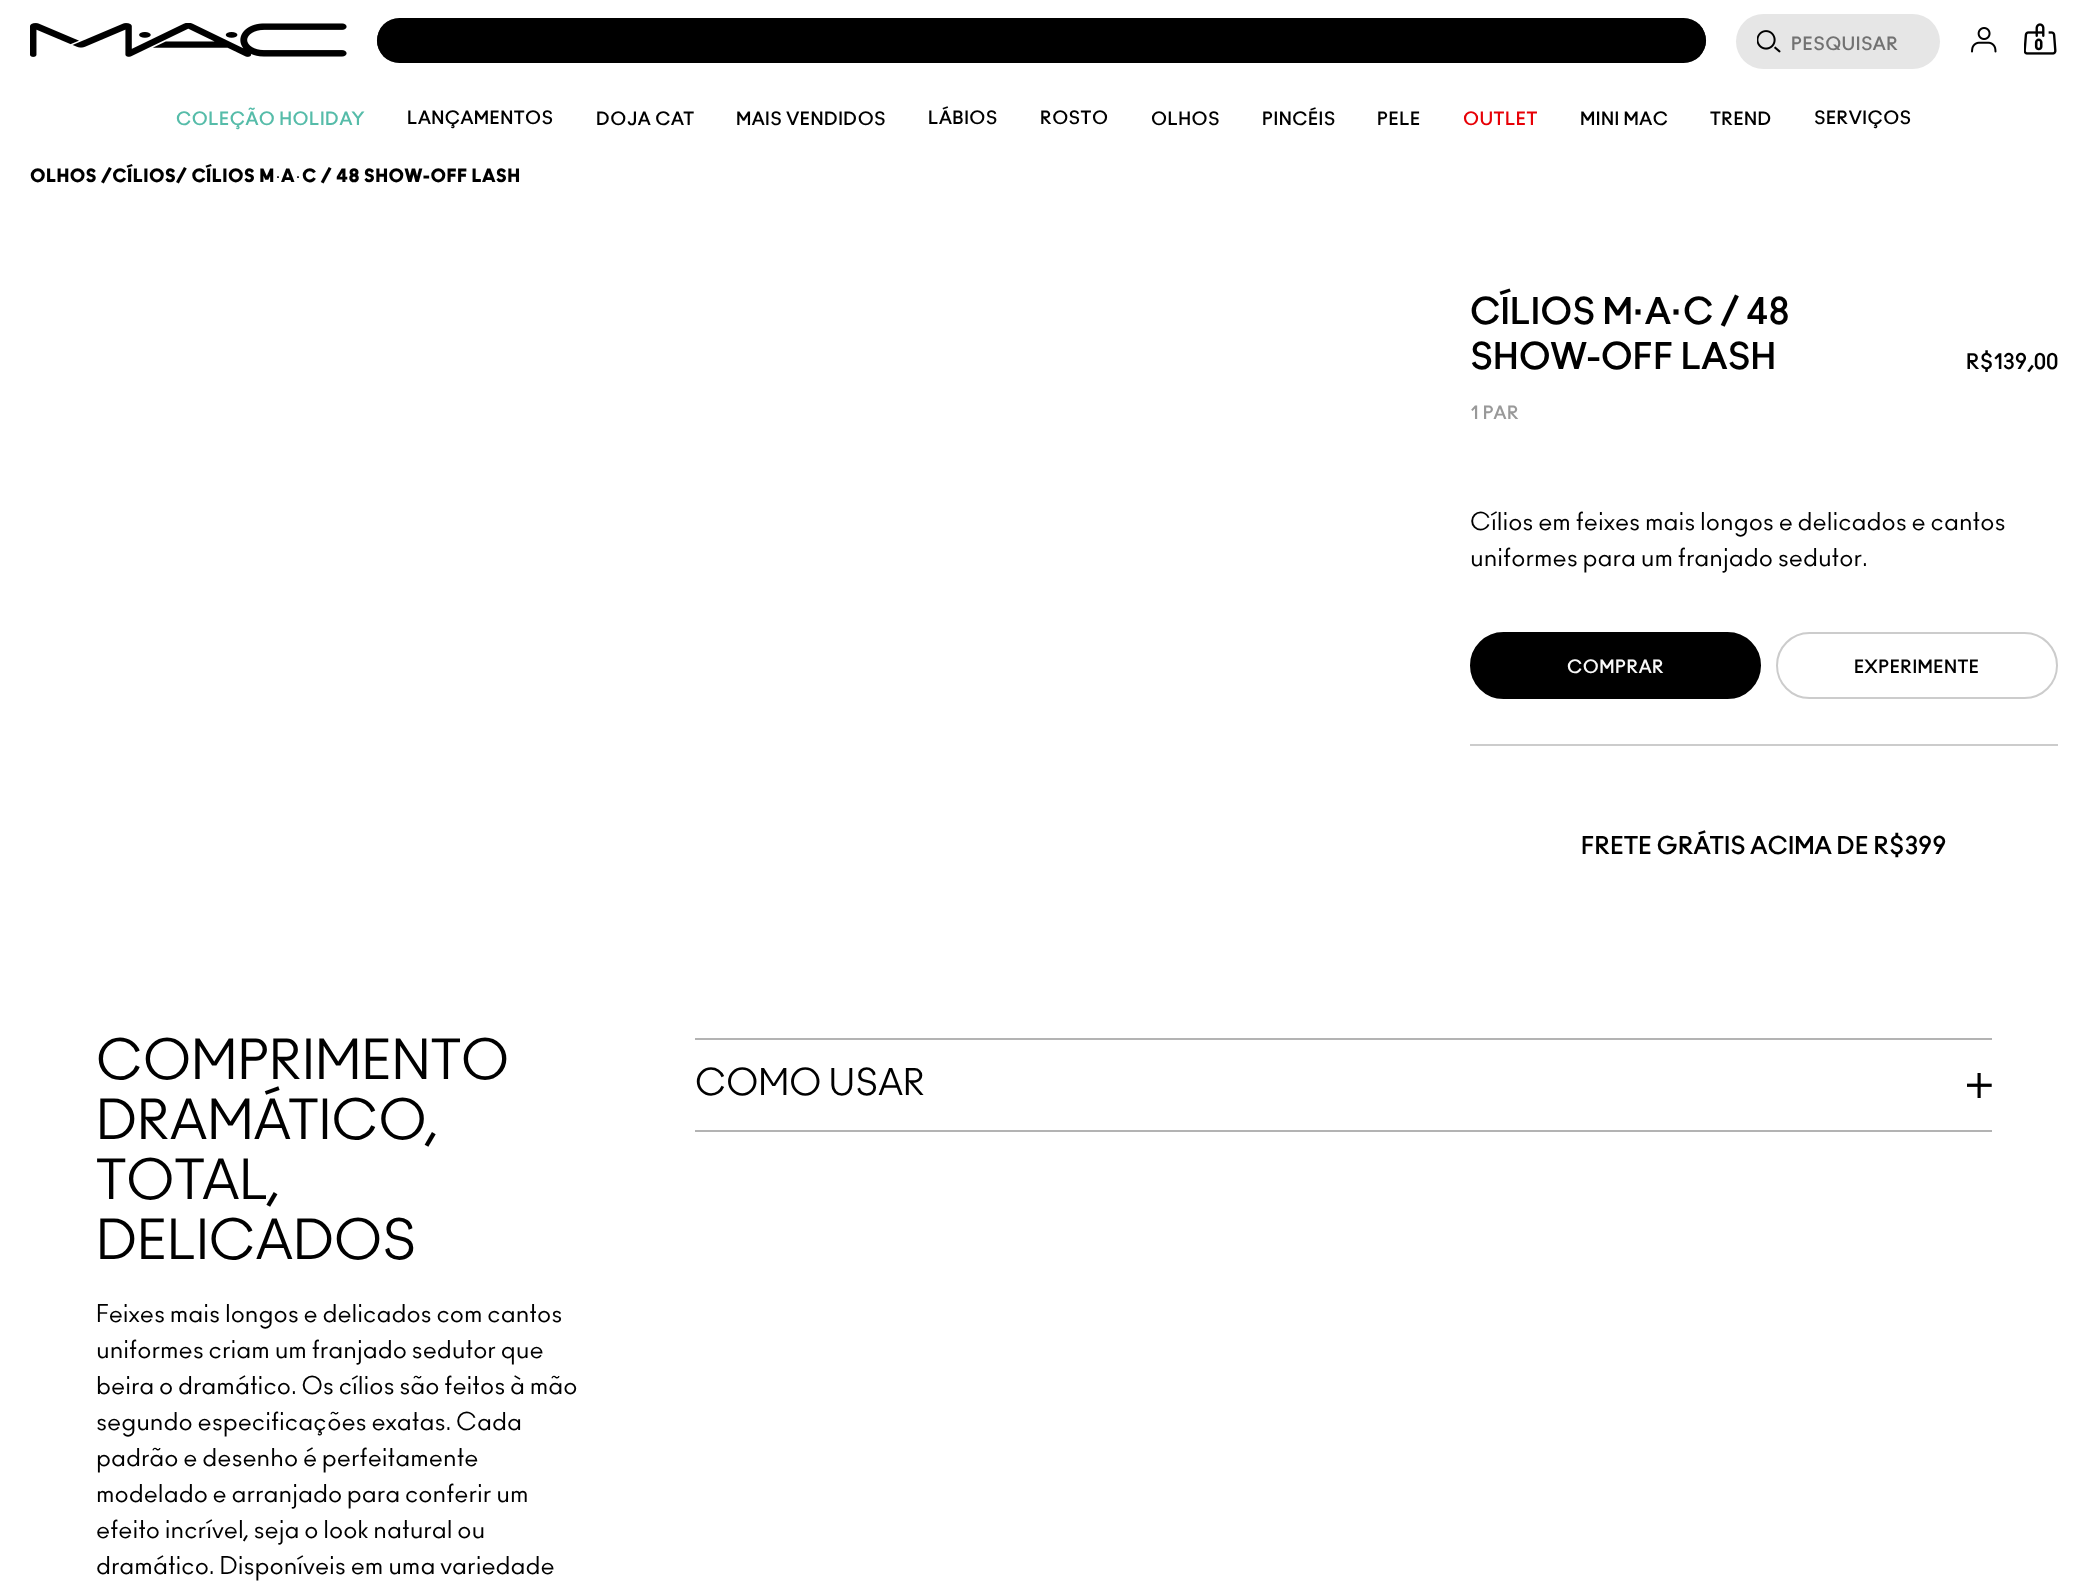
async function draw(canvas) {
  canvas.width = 2087
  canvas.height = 1584
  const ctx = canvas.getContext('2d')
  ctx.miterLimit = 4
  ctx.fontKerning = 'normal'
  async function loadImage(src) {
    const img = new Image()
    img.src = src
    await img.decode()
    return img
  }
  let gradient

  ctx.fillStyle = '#fff'
  ctx.fillRect(0, 0, 2087, 1584)
  ctx.drawImage(await loadImage('image0.png'), 30, 23, 317, 34)
  ctx.fillStyle = '#000'
  ctx.beginPath()
  ctx.roundRect(377, 18, 1329, 45, 22.5)
  ctx.fill()
  gradient = ctx.createLinearGradient(377, 41, 407, 41)
  gradient.addColorStop(0, '#000000e6')
  gradient.addColorStop(1, '#0000001a')
  ctx.fillStyle = gradient
  ctx.beginPath()
  ctx.roundRect(377, 18, 30, 45, [22.5, 0, 0, 22.5])
  ctx.fill()
  gradient = ctx.createLinearGradient(1706, 41, 1676, 41)
  gradient.addColorStop(0, '#000000e6')
  gradient.addColorStop(1, '#0000001a')
  ctx.fillStyle = gradient
  ctx.beginPath()
  ctx.roundRect(1676, 18, 30, 45, [0, 22.5, 22.5, 0])
  ctx.fill()
  ctx.fillStyle = '#e6e6e6'
  ctx.beginPath()
  ctx.roundRect(1736, 14, 204, 55, 27.5)
  ctx.fill()
  ctx.drawImage(await loadImage('image1.png'), 1757, 30, 24, 23)
  ctx.letterSpacing = '0.45px'
  ctx.font = 'bold 18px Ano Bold'
  ctx.fillStyle = '#727272'
  ctx.fillText('PESQUISAR', 1791, 50)
  ctx.drawImage(await loadImage('image2.png'), 1971, 27, 26, 26)
  ctx.drawImage(await loadImage('image3.png'), 2024, 23, 33, 32)
  ctx.letterSpacing = '0px'
  ctx.font = '900 15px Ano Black'
  ctx.fillStyle = '#000'
  ctx.fillText('0', 2034, 50)
  ctx.letterSpacing = '0.45px'
  ctx.font = 'bold 18px Ano Bold'
  ctx.fillStyle = '#56bca9'
  ctx.fillText('COLEÇÃO HOLIDAY', 176, 125)
  ctx.fillStyle = '#000'
  ctx.fillText('LANÇAMENTOS', 407, 124)
  ctx.fillText('DOJA CAT', 596, 125)
  ctx.fillText('MAIS VENDIDOS', 736, 125)
  ctx.fillText('LÁBIOS', 928, 124)
  ctx.fillText('ROSTO', 1040, 124)
  ctx.fillText('OLHOS', 1151, 125)
  ctx.fillText('PINCÉIS', 1262, 125)
  ctx.fillText('PELE', 1377, 125)
  ctx.fillStyle = '#e70006'
  ctx.fillText('OUTLET', 1463, 125)
  ctx.fillStyle = '#000'
  ctx.fillText('MINI MAC', 1580, 125)
  ctx.fillText('TREND', 1710, 125)
  ctx.fillText('SERVIÇOS', 1814, 124)
  ctx.font = '900 18px Ano Black'
  ctx.fillText('OLHOS /CÍLIOS/ CÍLIOS M', 30, 182)
  ctx.font = '18px Liberation Sans'
  ctx.fillText('·', 275, 182)
  ctx.font = '900 18px Ano Black'
  ctx.fillText('A', 281, 182)
  ctx.font = '18px Liberation Sans'
  ctx.fillText('·', 295, 182)
  ctx.font = '900 18px Ano Black'
  ctx.fillText('C / 48 SHOW-OFF LASH', 302, 182)
  ctx.letterSpacing = '0px'
  ctx.font = 'bold 36px Ano Bold'
  ctx.fillText('CÍLIOS M', 1470, 324)
  ctx.font = 'bold 36px Liberation Sans'
  ctx.fillText('·', 1633, 324)
  ctx.font = 'bold 36px Ano Bold'
  ctx.fillText('A', 1645, 324)
  ctx.font = 'bold 36px Liberation Sans'
  ctx.fillText('·', 1671, 324)
  ctx.font = 'bold 36px Ano Bold'
  ctx.fillText('C / 48', 1683, 324)
  ctx.fillText('SHOW-OFF LASH', 1470, 369)
  ctx.font = 'bold 21px Ano Bold'
  ctx.fillText('R$139,00', 1966, 369)
  ctx.letterSpacing = '0.45px'
  ctx.font = 'bold 18px Ano Bold'
  ctx.fillStyle = '#999'
  ctx.fillText('1 PAR', 1470, 419)
  ctx.letterSpacing = '0px'
  ctx.font = '24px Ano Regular'
  ctx.fillStyle = '#000'
  ctx.fillText('Cílios em feixes mais longos e delicados e cantos', 1470, 530)
  ctx.fillText('uniformes para um franjado sedutor.', 1470, 566)
  ctx.beginPath()
  ctx.roundRect(1471, 633, 289, 65, 32.5)
  ctx.fill()
  ctx.strokeStyle = '#000'
  ctx.lineWidth = 2
  ctx.stroke()
  ctx.letterSpacing = '0.45px'
  ctx.font = 'bold 18px Ano Bold'
  ctx.fillStyle = '#f9f9f9'
  ctx.fillText('COMPRAR', 1567, 673)
  ctx.beginPath()
  ctx.roundRect(1777, 633, 280, 65, 32.5)
  ctx.strokeStyle = '#ccc'
  ctx.stroke()
  ctx.fillStyle = '#000'
  ctx.fillText('EXPERIMENTE', 1854, 673)
  ctx.fillStyle = '#ccc'
  ctx.fillRect(1470, 744, 588, 2)
  ctx.letterSpacing = '0px'
  ctx.font = 'bold 24px Ano Bold'
  ctx.fillStyle = '#000'
  ctx.fillText('FRETE GRÁTIS ACIMA DE R$399', 1581, 854)
  ctx.font = '54px Ano Regular'
  ctx.fillText('COMPRIMENTO', 96, 1079)
  ctx.fillText('DRAMÁTICO,', 96, 1139)
  ctx.fillText('TOTAL,', 96, 1199)
  ctx.fillText('DELICADOS', 96, 1259)
  ctx.font = '24px Ano Regular'
  ctx.fillText('Feixes mais longos e delicados com cantos', 96, 1322)
  ctx.fillText('uniformes criam um franjado sedutor que', 96, 1358)
  ctx.fillText('beira o dramático. Os cílios são feitos à mão', 96, 1394)
  ctx.fillText('segundo especificações exatas. Cada', 96, 1430)
  ctx.fillText('padrão e desenho é perfeitamente', 96, 1466)
  ctx.fillText('modelado e arranjado para conferir um', 96, 1502)
  ctx.fillText('efeito incrível, seja o look natural ou', 96, 1538)
  ctx.fillText('dramático. Disponíveis em uma variedade', 96, 1574)
  ctx.fillStyle = '#b3b3b3'
  ctx.fillRect(695, 1038, 1297, 2)
  ctx.fillRect(695, 1130, 1297, 2)
  ctx.font = '36px Ano Regular'
  ctx.fillStyle = '#000'
  ctx.fillText('COMO USAR', 695, 1095)
  ctx.drawImage(await loadImage('image4.png'), 1967, 1073, 25, 25)
}

draw(document.querySelector('canvas'))
